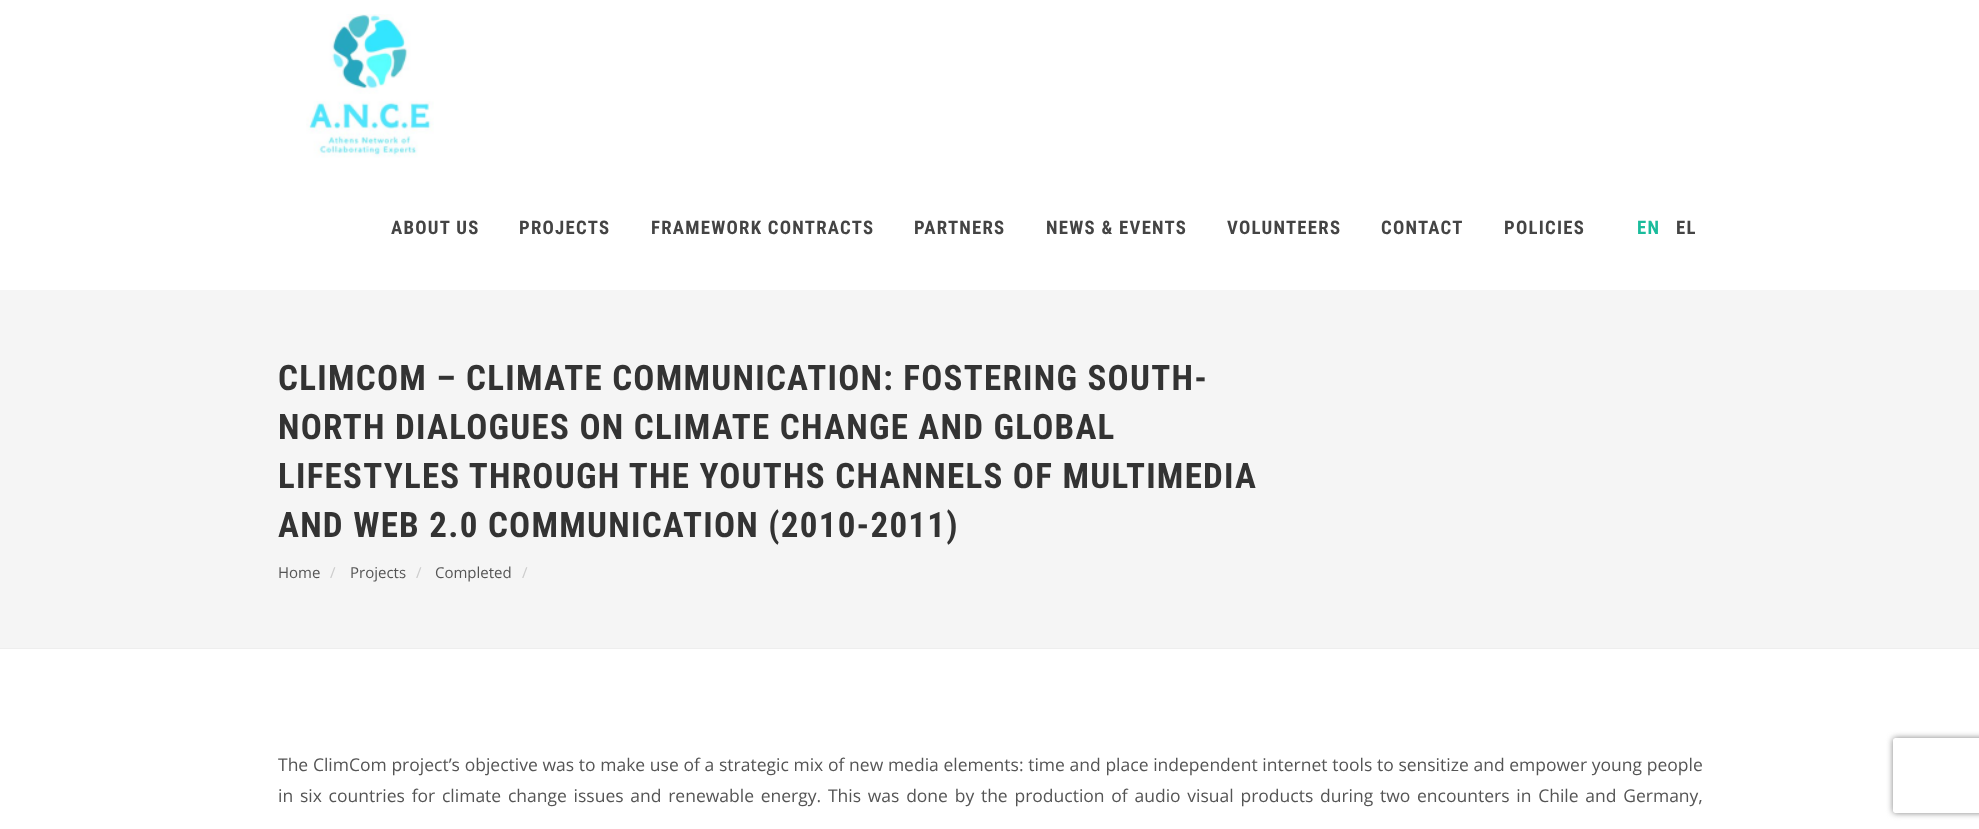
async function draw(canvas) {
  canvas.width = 1979
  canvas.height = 829
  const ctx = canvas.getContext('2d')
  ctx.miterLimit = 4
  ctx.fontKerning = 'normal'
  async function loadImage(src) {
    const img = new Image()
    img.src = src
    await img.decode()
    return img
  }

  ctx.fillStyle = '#fff'
  ctx.fillRect(0, 0, 1979, 829)
  ctx.fillStyle = '#f5f5f5'
  ctx.fillRect(0, 290, 1979, 358)
  ctx.drawImage(await loadImage('image0.png'), 306, 14, 128, 144)
  ctx.letterSpacing = '1.25px'
  ctx.font = 'bold 18.75px Roboto Condensed'
  ctx.fillStyle = '#444'
  ctx.fillText('ABOUT US', 391, 234)
  ctx.fillText('PROJECTS', 519, 234)
  ctx.fillText('FRAMEWORK CONTRACTS', 651, 234)
  ctx.fillText('PARTNERS', 914, 234)
  ctx.fillText('NEWS & EVENTS', 1046, 234)
  ctx.fillText('VOLUNTEERS', 1227, 234)
  ctx.fillText('CONTACT', 1381, 234)
  ctx.fillText('POLICIES', 1504, 234)
  ctx.fillStyle = '#1abc9c'
  ctx.fillText('EN', 1637, 234)
  ctx.fillStyle = '#444'
  ctx.fillText('EL', 1676, 234)
  ctx.fillStyle = '#eee'
  ctx.fillRect(0, 648, 1979, 1)
  ctx.font = 'bold 35px Roboto Condensed'
  ctx.fillStyle = '#333'
  ctx.fillText('CLIMCOM – CLIMATE COMMUNICATION: FOSTERING SOUTH-', 278, 390)
  ctx.fillText('NORTH DIALOGUES ON CLIMATE CHANGE AND GLOBAL', 278, 439)
  ctx.fillText('LIFESTYLES THROUGH THE YOUTHS CHANNELS OF MULTIMEDIA', 278, 488)
  ctx.fillText('AND WEB 2.0 COMMUNICATION (2010-2011)', 278, 537)
  ctx.letterSpacing = '0px'
  ctx.font = '15px Open Sans'
  ctx.fillStyle = '#555'
  ctx.fillText('Home', 278, 578)
  ctx.fillStyle = '#ccc'
  ctx.fillText('/', 330, 578)
  ctx.fillStyle = '#555'
  ctx.fillText('Projects', 350, 578)
  ctx.fillStyle = '#ccc'
  ctx.fillText('/', 416, 578)
  ctx.fillStyle = '#555'
  ctx.fillText('Completed', 435, 578)
  ctx.fillStyle = '#ccc'
  ctx.fillText('/', 522, 578)
  ctx.wordSpacing = '0.15px'
  ctx.font = '17.5px Open Sans'
  ctx.fillStyle = '#555'
  ctx.fillText('The ClimCom project’s objective was to make use of a strategic mix of new media elements: time and place independent internet tools to sensitize and empower young people', 278, 771)
  ctx.wordSpacing = '2.2px'
  ctx.fillText('in six countries for climate change issues and renewable energy. This was done by the production of audio visual products during two encounters in Chile and Germany,', 278, 802)
  ctx.save()
  ctx.beginPath()
  ctx.moveTo(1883, 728)
  ctx.lineTo(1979, 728)
  ctx.lineTo(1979, 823)
  ctx.lineTo(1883, 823)
  ctx.closePath()
  ctx.moveTo(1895.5, 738)
  ctx.lineTo(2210.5, 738)
  ctx.bezierCurveTo(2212, 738, 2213, 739, 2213, 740.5)
  ctx.lineTo(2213, 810.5)
  ctx.bezierCurveTo(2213, 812, 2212, 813, 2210.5, 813)
  ctx.lineTo(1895.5, 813)
  ctx.bezierCurveTo(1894, 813, 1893, 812, 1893, 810.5)
  ctx.lineTo(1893, 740.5)
  ctx.bezierCurveTo(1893, 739, 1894, 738, 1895.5, 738)
  ctx.closePath()
  ctx.clip('evenodd')
  ctx.fillStyle = '#808080'
  ctx.filter = 'blur(3px)'
  ctx.beginPath()
  ctx.roundRect(1893, 738, 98, 75, 2.5)
  ctx.fill()
  ctx.filter = 'none'
  ctx.restore()
}

draw(document.querySelector('canvas'))
